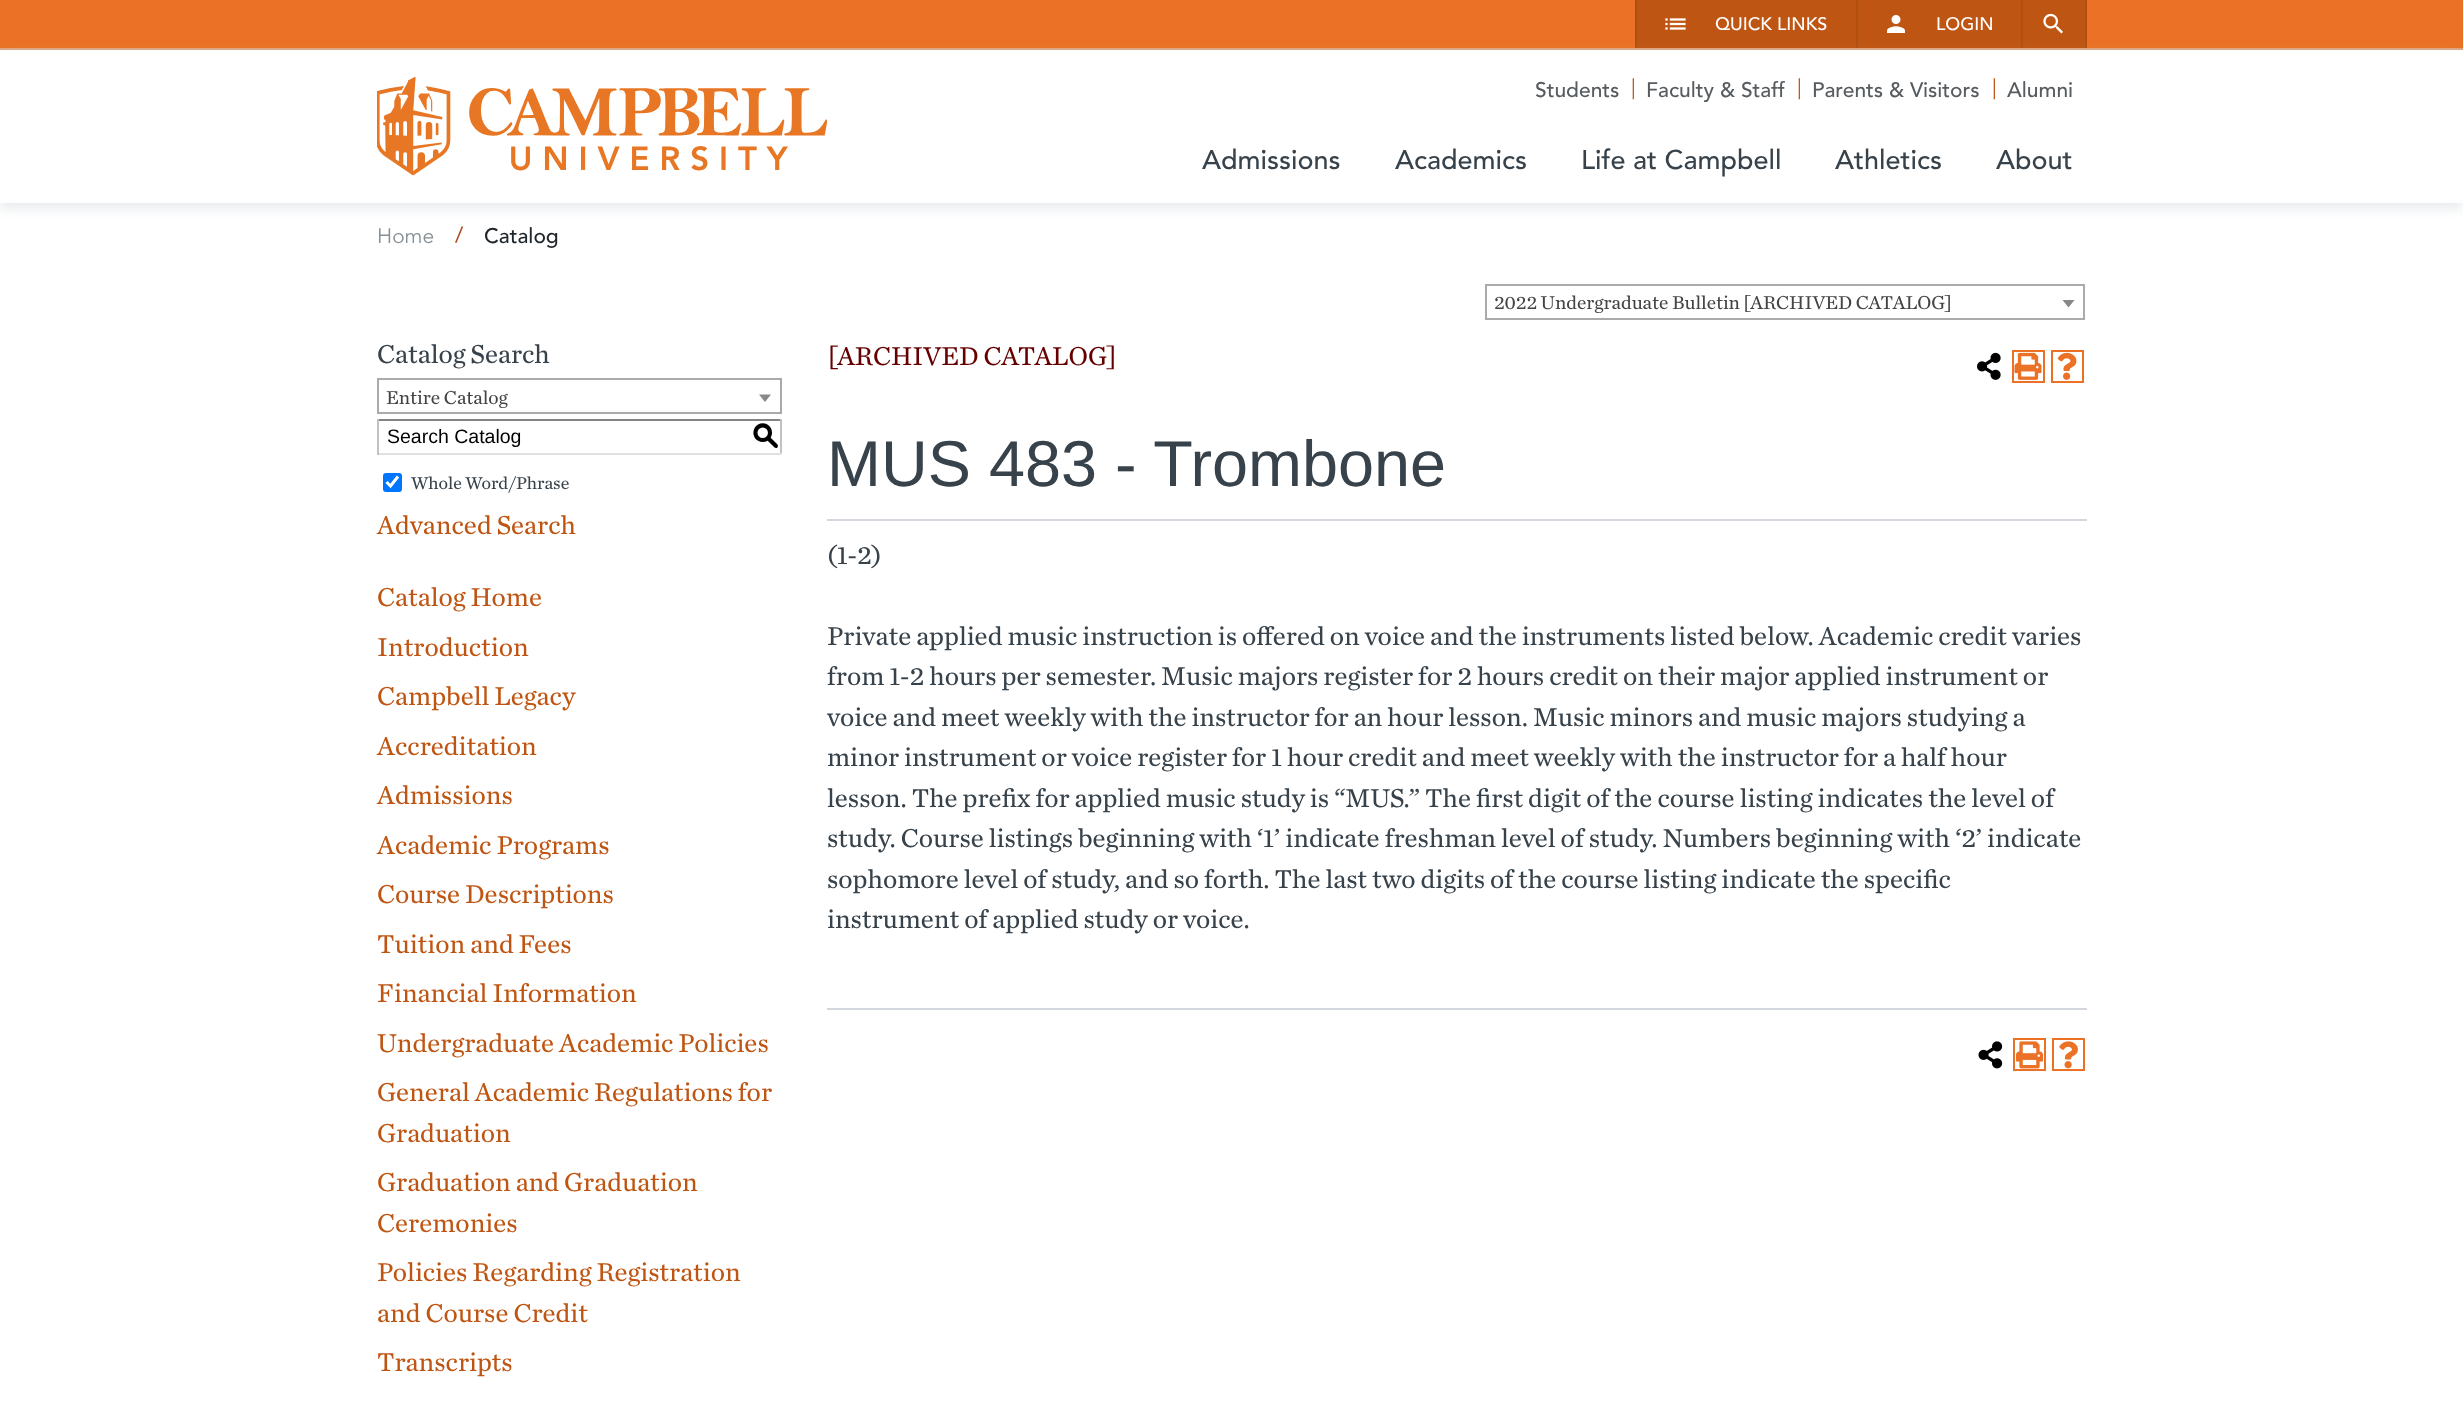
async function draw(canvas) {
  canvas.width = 2463
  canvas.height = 1416
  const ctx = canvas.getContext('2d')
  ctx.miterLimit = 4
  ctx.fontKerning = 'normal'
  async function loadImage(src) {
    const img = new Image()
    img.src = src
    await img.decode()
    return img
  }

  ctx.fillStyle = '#fff'
  ctx.fillRect(0, 0, 2463, 1416)
  ctx.fillStyle = '#ea7125'
  ctx.fillRect(0, 0, 2463, 48)
  ctx.fillStyle = '#dea581'
  ctx.fillRect(0, 48, 2463, 2)
  ctx.fillStyle = '#bf5512'
  ctx.fillRect(1637, 0, 219, 48)
  ctx.fillStyle = '#b14f11'
  ctx.fillRect(1635, 0, 2, 48)
  ctx.drawImage(await loadImage('image0.png'), 1665, 18, 21, 12)
  ctx.font = '500 18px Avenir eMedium'
  ctx.fillStyle = '#fff'
  ctx.fillText('QUICK LINKS', 1715, 30)
  ctx.fillStyle = '#bf5512'
  ctx.fillRect(1858, 0, 163, 48)
  ctx.fillStyle = '#b14f11'
  ctx.fillRect(1856, 0, 2, 48)
  ctx.drawImage(await loadImage('image1.png'), 1887, 15, 18, 18)
  ctx.fillStyle = '#fff'
  ctx.fillText('LOGIN', 1936, 30)
  ctx.fillStyle = '#bf5512'
  ctx.fillRect(2023, 0, 62, 48)
  ctx.fillStyle = '#b14f11'
  ctx.fillRect(2085, 0, 2, 48)
  ctx.fillRect(2021, 0, 2, 48)
  ctx.drawImage(await loadImage('image2.png'), 2043, 13, 20, 21)
  ctx.fillStyle = '#d2d8dd80'
  ctx.filter = 'blur(6px)'
  ctx.beginPath()
  ctx.rect(0, 56, 2463, 153)
  ctx.fill()
  ctx.filter = 'none'
  ctx.fillStyle = '#fff'
  ctx.fillRect(0, 50, 2463, 153)
  ctx.drawImage(await loadImage('image3.png'), 377, 77, 450, 99)
  ctx.font = '500 21px Avenir eMedium'
  ctx.fillStyle = '#565c60'
  ctx.fillText('Students', 1535, 97)
  ctx.font = '21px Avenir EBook'
  ctx.fillStyle = '#bf5512'
  ctx.fillText('|', 1631, 94)
  ctx.font = '500 21px Avenir eMedium'
  ctx.fillStyle = '#565c60'
  ctx.fillText('Faculty & Staff', 1646, 97)
  ctx.font = '21px Avenir EBook'
  ctx.fillStyle = '#bf5512'
  ctx.fillText('|', 1797, 94)
  ctx.font = '500 21px Avenir eMedium'
  ctx.fillStyle = '#565c60'
  ctx.fillText('Parents & Visitors', 1812, 97)
  ctx.font = '21px Avenir EBook'
  ctx.fillStyle = '#bf5512'
  ctx.fillText('|', 1992, 94)
  ctx.font = '500 21px Avenir eMedium'
  ctx.fillStyle = '#565c60'
  ctx.fillText('Alumni', 2007, 97)
  ctx.font = '500 27px Avenir eMedium'
  ctx.fillStyle = '#37424b'
  ctx.fillText('Admissions', 1202, 169)
  ctx.fillText('Academics', 1395, 169)
  ctx.fillText('Life at Campbell', 1581, 169)
  ctx.fillText('Athletics', 1835, 169)
  ctx.fillText('About', 1996, 169)
  ctx.font = '21px Avenir EBook'
  ctx.fillStyle = '#868f95'
  ctx.fillText('Home', 377, 243)
  ctx.font = '500 21px Avenir eMedium'
  ctx.fillStyle = '#ac4c21'
  ctx.fillText('/', 455, 242)
  ctx.fillStyle = '#1e252b'
  ctx.fillText('Catalog', 484, 243)
  ctx.strokeStyle = '#aaa'
  ctx.lineWidth = 2
  ctx.strokeRect(1486, 285, 598, 34)
  ctx.font = '300 19.5px "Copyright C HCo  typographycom"'
  ctx.fillStyle = '#444'
  ctx.fillText('2022 Undergraduate Bulletin [ARCHIVED CATALOG]', 1494, 309)
  ctx.fillStyle = '#888'
  ctx.beginPath()
  ctx.moveTo(2062.5, 300)
  ctx.lineTo(2074.5, 300)
  ctx.lineTo(2068.5, 307.5)
  ctx.closePath()
  ctx.fill()
  ctx.font = '300 27px "Copyright C HCo  typographycom"'
  ctx.fillStyle = '#37424b'
  ctx.fillText('Catalog Search', 377, 363)
  ctx.strokeRect(378, 379, 403, 34)
  ctx.font = '300 19.5px "Copyright C HCo  typographycom"'
  ctx.fillStyle = '#444'
  ctx.fillText('Entire Catalog', 386, 404)
  ctx.fillStyle = '#888'
  ctx.beginPath()
  ctx.moveTo(759, 394.5)
  ctx.lineTo(771, 394.5)
  ctx.lineTo(765, 402)
  ctx.closePath()
  ctx.fill()
  ctx.fillStyle = '#848484'
  ctx.fillRect(377, 419, 405, 2)
  ctx.fillStyle = '#c1c1c1'
  ctx.fillRect(780, 419, 2, 36)
  ctx.fillStyle = '#e1e1e1'
  ctx.fillRect(377, 453, 405, 2)
  ctx.fillStyle = '#c1c1c1'
  ctx.fillRect(377, 419, 2, 36)
  ctx.font = '19.5px Liberation Sans'
  ctx.fillStyle = '#000'
  ctx.fillText('Search Catalog', 387, 443)
  ctx.font = '500 27px "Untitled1"'
  ctx.fillText('S', 752, 444)
  ctx.fillStyle = '#0075ff'
  ctx.beginPath()
  ctx.roundRect(383, 473, 19, 19, 3)
  ctx.fill()
  ctx.beginPath()
  ctx.moveTo(386.5, 482)
  ctx.lineTo(390.5, 486)
  ctx.lineTo(398, 476.5)
  ctx.strokeStyle = '#fff'
  ctx.lineWidth = 3.1
  ctx.stroke()
  ctx.font = '300 18px "Copyright C HCo  typographycom"'
  ctx.fillStyle = '#37424b'
  ctx.fillText('Whole Word/Phrase', 411, 489)
  ctx.font = '300 27px "Copyright C HCo  typographycom"'
  ctx.fillStyle = '#bf5512'
  ctx.fillText('Advanced Search', 377, 534)
  ctx.fillText('Catalog Home', 377, 606)
  ctx.fillText('Introduction', 377, 656)
  ctx.fillText('Campbell Legacy', 377, 705)
  ctx.fillText('Accreditation', 377, 755)
  ctx.fillText('Admissions', 377, 804)
  ctx.fillText('Academic Programs', 377, 854)
  ctx.fillText('Course Descriptions', 377, 903)
  ctx.fillText('Tuition and Fees', 377, 953)
  ctx.fillText('Financial Information', 377, 1002)
  ctx.fillText('Undergraduate Academic Policies', 377, 1052)
  ctx.fillText('General Academic Regulations for', 377, 1101)
  ctx.fillText('Graduation', 377, 1142)
  ctx.fillText('Graduation and Graduation', 377, 1191)
  ctx.fillText('Ceremonies', 377, 1232)
  ctx.fillText('Policies Regarding Registration', 377, 1281)
  ctx.fillText('and Course Credit', 377, 1322)
  ctx.fillText('Transcripts', 377, 1371)
  ctx.fillStyle = '#600'
  ctx.fillText('[ARCHIVED CATALOG]', 828, 365)
  ctx.drawImage(await loadImage('image4.png'), 1977, 352, 24, 28)
  ctx.strokeStyle = '#ea7125'
  ctx.lineWidth = 2
  ctx.strokeRect(2013, 351, 31, 31)
  ctx.drawImage(await loadImage('image5.png'), 2014, 352, 28, 28)
  ctx.strokeRect(2052, 351, 31, 31)
  ctx.drawImage(await loadImage('image6.png'), 2057, 352, 20, 28)
  ctx.font = '64.75px Liberation Sans'
  ctx.fillStyle = '#37424b'
  ctx.fillText('MUS 483 - Trombone', 827, 486)
  ctx.fillStyle = '#d2d8dd'
  ctx.fillRect(827, 519, 1260, 2)
  ctx.font = '300 27px "Copyright C HCo  typographycom"'
  ctx.fillStyle = '#37424b'
  ctx.fillText('(1-2)', 827, 564)
  ctx.fillText('Private applied music instruction is offered on voice and the instruments listed below. Academic credit varies', 827, 645)
  ctx.fillText('from 1-2 hours per semester. Music majors register for 2 hours credit on their major applied instrument or', 827, 685)
  ctx.fillText('voice and meet weekly with the instructor for an hour lesson. Music minors and music majors studying a', 827, 726)
  ctx.fillText('minor instrument or voice register for 1 hour credit and meet weekly with the instructor for a half hour', 827, 766)
  ctx.fillText('lesson. The prefix for applied music study is “MUS.” The first digit of the course listing indicates the level of', 827, 807)
  ctx.fillText('study. Course listings beginning with ‘1’ indicate freshman level of study. Numbers beginning with ‘2’ indicate', 827, 847)
  ctx.fillText('sophomore level of study, and so forth. The last two digits of the course listing indicate the specific', 827, 888)
  ctx.fillText('instrument of applied study or voice.', 827, 928)
  ctx.fillStyle = '#d2d8dd'
  ctx.fillRect(827, 1008, 1260, 2)
  ctx.drawImage(await loadImage('image7.png'), 1978, 1041, 25, 28)
  ctx.strokeRect(2014, 1039, 31, 31)
  ctx.drawImage(await loadImage('image8.png'), 2016, 1041, 27, 28)
  ctx.strokeRect(2053, 1039, 31, 31)
  ctx.drawImage(await loadImage('image9.png'), 2059, 1041, 19, 28)
}

draw(document.querySelector('canvas'))
